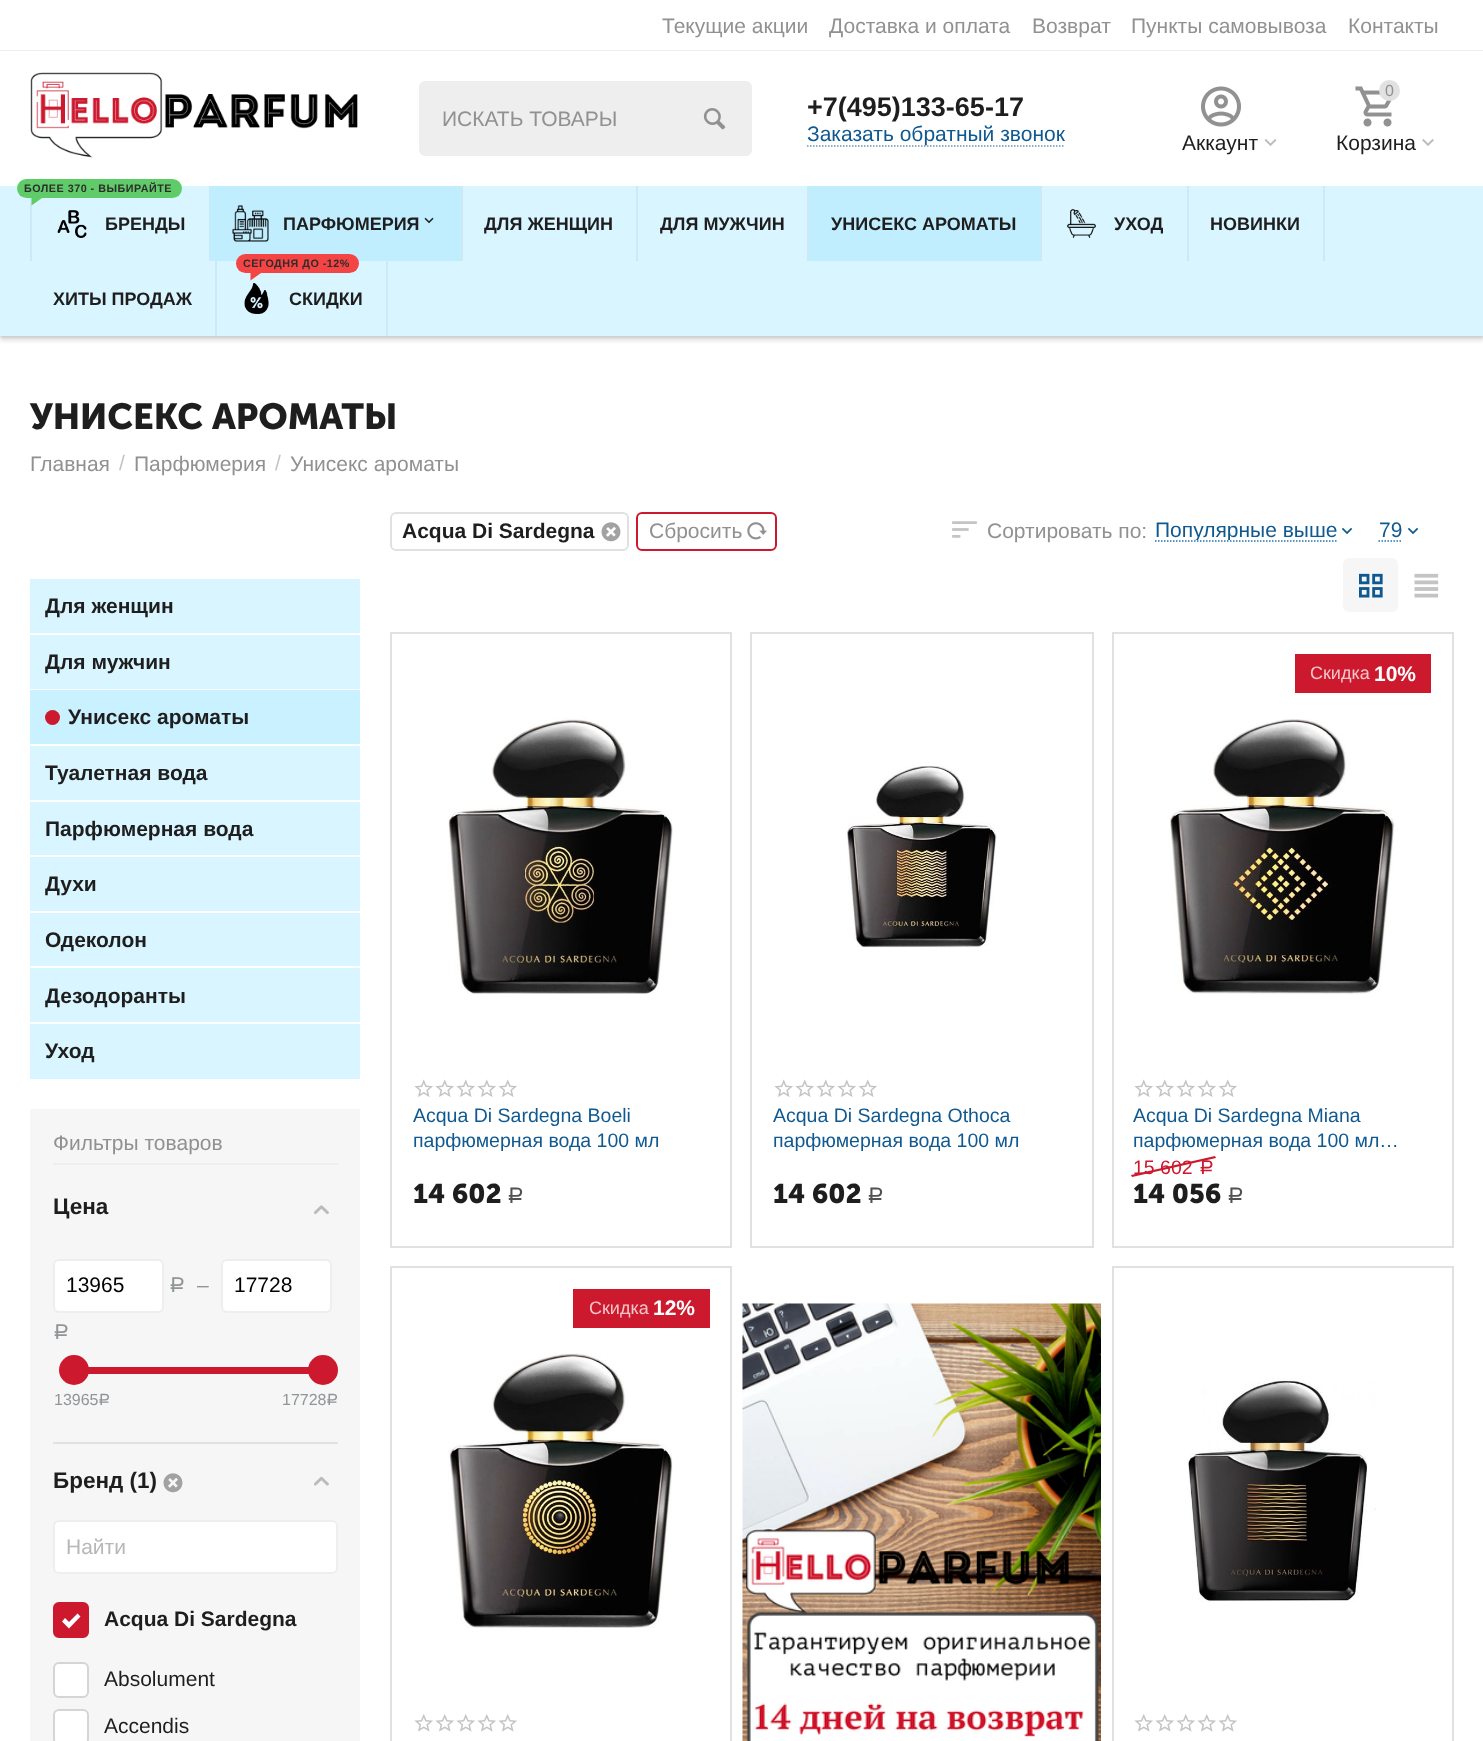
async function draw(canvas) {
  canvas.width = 1483
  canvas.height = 1741
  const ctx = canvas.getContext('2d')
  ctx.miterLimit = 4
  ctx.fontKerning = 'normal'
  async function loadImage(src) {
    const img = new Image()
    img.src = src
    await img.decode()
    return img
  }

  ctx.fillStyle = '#fff'
  ctx.fillRect(0, 0, 1483, 1741)
  ctx.fillStyle = '#eee'
  ctx.fillRect(0, 50, 1483, 1)
  ctx.font = '21px Liberation Sans'
  ctx.fillStyle = '#919191'
  ctx.fillText('Текущие акции', 662, 33)
  ctx.fillText('Доставка и оплата', 829, 33)
  ctx.fillText('Возврат', 1032, 33)
  ctx.fillText('Пункты самовывоза', 1131, 33)
  ctx.fillText('Контакты', 1348, 33)
  ctx.drawImage(await loadImage('image0.png'), 30, 72, 328, 86)
  ctx.fillStyle = '#eee'
  ctx.beginPath()
  ctx.roundRect(420, 82, 331, 73, 5)
  ctx.fill()
  ctx.strokeStyle = '#eee'
  ctx.lineWidth = 2
  ctx.stroke()
  ctx.fillStyle = '#919191'
  ctx.fillText('ИСКАТЬ ТОВАРЫ', 442, 126)
  ctx.drawImage(await loadImage('image1.png'), 703, 108, 23, 22)
  ctx.font = 'bold 27px Liberation Sans'
  ctx.fillStyle = '#1e1e1e'
  ctx.fillText('+7(495)133-65-17', 807, 116)
  ctx.beginPath()
  ctx.moveTo(807, 146)
  ctx.lineTo(1065, 146)
  ctx.strokeStyle = '#6e94b1'
  ctx.lineWidth = 1.5
  ctx.setLineDash([1.5, 1.5])
  ctx.stroke()
  ctx.font = '21px Liberation Sans'
  ctx.fillStyle = '#105990'
  ctx.fillText('Заказать обратный звонок', 807, 141)
  ctx.drawImage(await loadImage('image2.png'), 1201, 86, 40, 41)
  ctx.fillStyle = '#1e1e1e'
  ctx.fillText('Аккаунт', 1182, 150)
  ctx.drawImage(await loadImage('image3.png'), 1264, 139, 13, 7)
  ctx.drawImage(await loadImage('image4.png'), 1355, 86, 37, 41)
  ctx.fillStyle = '#e1e1e1'
  ctx.beginPath()
  ctx.arc(1389.5, 90.5, 10.5, 0, 2 * Math.PI)
  ctx.fill()
  ctx.font = '16px Liberation Sans'
  ctx.fillStyle = '#919191'
  ctx.fillText('0', 1385, 96)
  ctx.font = '21px Liberation Sans'
  ctx.fillStyle = '#1e1e1e'
  ctx.fillText('Корзина', 1336, 150)
  ctx.drawImage(await loadImage('image5.png'), 1422, 139, 12, 7)
  ctx.fillStyle = '#0000001a'
  ctx.filter = 'blur(2px)'
  ctx.beginPath()
  ctx.rect(0, 191, 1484, 150)
  ctx.fill()
  ctx.filter = 'none'
  ctx.filter = 'blur(1px)'
  ctx.beginPath()
  ctx.rect(0, 188, 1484, 150)
  ctx.fill()
  ctx.filter = 'none'
  ctx.fillStyle = '#d9f5ff'
  ctx.fillRect(0, 186, 1483, 150)
  ctx.fillStyle = '#cceaf6'
  ctx.fillRect(209, 186, 1, 75)
  ctx.fillRect(30, 198, 2, 63)
  ctx.fillStyle = '#60cc69'
  ctx.beginPath()
  ctx.roundRect(17, 179, 165, 19, 9.5)
  ctx.fill()
  ctx.letterSpacing = '0.5px'
  ctx.font = 'bold 10.75px Liberation Sans'
  ctx.fillStyle = '#2e2c2c'
  ctx.fillText('БОЛЕЕ 370 - ВЫБИРАЙТЕ', 24, 192)
  ctx.fillStyle = '#60cc69'
  ctx.beginPath()
  ctx.moveTo(31.5, 198)
  ctx.lineTo(42, 198)
  ctx.lineTo(31.5, 205.5)
  ctx.closePath()
  ctx.fill()
  ctx.letterSpacing = '0px'
  ctx.font = 'bold 18px Liberation Sans'
  ctx.fillStyle = '#1e1e1e'
  ctx.fillText('БРЕНДЫ', 105, 230)
  ctx.drawImage(await loadImage('image6.png'), 57, 210, 30, 28)
  ctx.fillStyle = '#c0eeff'
  ctx.fillRect(210, 186, 251, 75)
  ctx.fillStyle = '#cceaf6'
  ctx.fillRect(461, 186, 2, 75)
  ctx.drawImage(await loadImage('image7.png'), 232, 205, 37, 37)
  ctx.fillStyle = '#1e1e1e'
  ctx.fillText('ПАРФЮМЕРИЯ', 283, 230)
  ctx.drawImage(await loadImage('image8.png'), 424, 217, 10, 7)
  ctx.fillStyle = '#cceaf6'
  ctx.fillRect(636, 186, 2, 75)
  ctx.fillStyle = '#1e1e1e'
  ctx.fillText('ДЛЯ ЖЕНЩИН', 484, 230)
  ctx.fillStyle = '#cceaf6'
  ctx.fillRect(807, 186, 2, 75)
  ctx.fillStyle = '#1e1e1e'
  ctx.fillText('ДЛЯ МУЖЧИН', 660, 230)
  ctx.fillStyle = '#c0eeff'
  ctx.fillRect(809, 186, 231, 75)
  ctx.fillStyle = '#cceaf6'
  ctx.fillRect(1040, 186, 2, 75)
  ctx.fillStyle = '#1e1e1e'
  ctx.fillText('УНИСЕКС АРОМАТЫ', 831, 230)
  ctx.fillStyle = '#cceaf6'
  ctx.fillRect(1187, 186, 2, 75)
  ctx.drawImage(await loadImage('image9.png'), 1067, 209, 29, 29)
  ctx.fillStyle = '#1e1e1e'
  ctx.fillText('УХОД', 1114, 230)
  ctx.fillStyle = '#cceaf6'
  ctx.fillRect(1323, 186, 2, 75)
  ctx.fillStyle = '#1e1e1e'
  ctx.fillText('НОВИНКИ', 1210, 230)
  ctx.fillStyle = '#cceaf6'
  ctx.fillRect(215, 261, 2, 75)
  ctx.fillStyle = '#1e1e1e'
  ctx.fillText('ХИТЫ ПРОДАЖ', 53, 305)
  ctx.fillStyle = '#cceaf6'
  ctx.fillRect(386, 261, 2, 75)
  ctx.fillStyle = '#f54444'
  ctx.beginPath()
  ctx.roundRect(236, 254, 123, 19, 9.5)
  ctx.fill()
  ctx.letterSpacing = '0.5px'
  ctx.font = 'bold 10.75px Liberation Sans'
  ctx.fillStyle = '#2e2c2c'
  ctx.fillText('СЕГОДНЯ ДО -12%', 243, 267)
  ctx.fillStyle = '#f54444'
  ctx.beginPath()
  ctx.moveTo(250.5, 273)
  ctx.lineTo(261, 273)
  ctx.lineTo(250.5, 280.5)
  ctx.closePath()
  ctx.fill()
  ctx.letterSpacing = '0px'
  ctx.font = 'bold 18px Liberation Sans'
  ctx.fillStyle = '#1e1e1e'
  ctx.fillText('СКИДКИ', 289, 305)
  ctx.drawImage(await loadImage('image10.png'), 244, 283, 25, 31)
  ctx.font = 'bold 36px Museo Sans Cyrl'
  ctx.fillText('УНИСЕКС АРОМАТЫ', 30, 429)
  ctx.font = '21px Liberation Sans'
  ctx.fillStyle = '#919191'
  ctx.fillText('Главная', 30, 471)
  ctx.fillStyle = '#c4c4c4'
  ctx.fillText('/', 119, 470)
  ctx.fillStyle = '#919191'
  ctx.fillText('Парфюмерия', 134, 471)
  ctx.fillStyle = '#c4c4c4'
  ctx.fillText('/', 275, 470)
  ctx.fillStyle = '#919191'
  ctx.fillText('Унисекс ароматы', 290, 471)
  ctx.fillStyle = '#d9f5ff'
  ctx.fillRect(30, 579, 330, 500)
  ctx.fillStyle = '#fff'
  ctx.fillRect(30, 633, 330, 2)
  ctx.font = 'bold 21px Liberation Sans'
  ctx.fillStyle = '#1e1e1e'
  ctx.fillText('Для женщин', 45, 613)
  ctx.fillStyle = '#fff'
  ctx.fillRect(30, 689, 330, 1)
  ctx.fillStyle = '#1e1e1e'
  ctx.fillText('Для мужчин', 45, 669)
  ctx.fillStyle = '#caf1ff'
  ctx.fillRect(30, 690, 330, 54)
  ctx.fillStyle = '#fff'
  ctx.fillRect(30, 744, 330, 2)
  ctx.fillStyle = '#cd192e'
  ctx.beginPath()
  ctx.arc(52.5, 717.5, 7.5, 0, 2 * Math.PI)
  ctx.fill()
  ctx.fillStyle = '#1e1e1e'
  ctx.fillText('Унисекс ароматы', 68, 724)
  ctx.fillStyle = '#fff'
  ctx.fillRect(30, 800, 330, 2)
  ctx.fillStyle = '#1e1e1e'
  ctx.fillText('Туалетная вода', 45, 780)
  ctx.fillStyle = '#fff'
  ctx.fillRect(30, 855, 330, 2)
  ctx.fillStyle = '#1e1e1e'
  ctx.fillText('Парфюмерная вода', 45, 836)
  ctx.fillStyle = '#fff'
  ctx.fillRect(30, 911, 330, 2)
  ctx.fillStyle = '#1e1e1e'
  ctx.fillText('Духи', 45, 891)
  ctx.fillStyle = '#fff'
  ctx.fillRect(30, 966, 330, 2)
  ctx.fillStyle = '#1e1e1e'
  ctx.fillText('Одеколон', 45, 947)
  ctx.fillStyle = '#fff'
  ctx.fillRect(30, 1022, 330, 2)
  ctx.fillStyle = '#1e1e1e'
  ctx.fillText('Дезодоранты', 45, 1003)
  ctx.fillText('Уход', 45, 1058)
  ctx.fillStyle = '#f6f6f6'
  ctx.fillRect(30, 1109, 330, 632)
  ctx.fillStyle = '#eee'
  ctx.fillRect(53, 1163, 285, 2)
  ctx.font = '21px Liberation Sans'
  ctx.fillStyle = '#919191'
  ctx.fillText('Фильтры товаров', 53, 1150)
  ctx.font = 'bold 22.5px Liberation Sans'
  ctx.fillStyle = '#1e1e1e'
  ctx.fillText('Цена', 53, 1214)
  ctx.drawImage(await loadImage('image11.png'), 314, 1205, 15, 9)
  ctx.fillStyle = '#fff'
  ctx.beginPath()
  ctx.roundRect(222, 1260, 109, 52, 5)
  ctx.fill()
  ctx.strokeStyle = '#eee'
  ctx.lineWidth = 2
  ctx.setLineDash([])
  ctx.stroke()
  ctx.font = '21px Liberation Sans'
  ctx.fillStyle = '#000'
  ctx.fillText('17728', 234, 1292)
  ctx.font = '21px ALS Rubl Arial'
  ctx.fillStyle = '#909598'
  ctx.fillText('Р', 53, 1339)
  ctx.fillStyle = '#fff'
  ctx.beginPath()
  ctx.roundRect(54, 1260, 109, 52, 5)
  ctx.fill()
  ctx.stroke()
  ctx.font = '21px Liberation Sans'
  ctx.fillStyle = '#000'
  ctx.fillText('13965', 66, 1292)
  ctx.font = '21px ALS Rubl Arial'
  ctx.fillStyle = '#909598'
  ctx.fillText('Р', 169, 1292)
  ctx.font = '21px Liberation Sans'
  ctx.fillText('–', 197, 1292)
  ctx.fillStyle = '#cd192e'
  ctx.fillRect(88, 1367, 221, 7)
  ctx.beginPath()
  ctx.arc(74, 1370, 15, 0, 2 * Math.PI)
  ctx.fill()
  ctx.beginPath()
  ctx.arc(323, 1370, 15, 0, 2 * Math.PI)
  ctx.fill()
  ctx.font = '16px Liberation Sans'
  ctx.fillStyle = '#909598'
  ctx.fillText('13965', 54, 1405)
  ctx.font = '16px ALS Rubl Arial'
  ctx.fillText('Р', 98, 1405)
  ctx.font = '16px Liberation Sans'
  ctx.fillText('17728', 282, 1405)
  ctx.font = '16px ALS Rubl Arial'
  ctx.fillText('Р', 326, 1405)
  ctx.fillStyle = '#e1e1e1'
  ctx.fillRect(53, 1442, 285, 2)
  ctx.font = 'bold 22.5px Liberation Sans'
  ctx.fillStyle = '#1e1e1e'
  ctx.fillText('Бренд (1)', 53, 1488)
  ctx.drawImage(await loadImage('image12.png'), 163, 1473, 20, 20)
  ctx.drawImage(await loadImage('image13.png'), 314, 1476, 15, 10)
  ctx.fillStyle = '#fff'
  ctx.beginPath()
  ctx.roundRect(54, 1521, 283, 52, 5)
  ctx.fill()
  ctx.stroke()
  ctx.font = '21px Liberation Sans'
  ctx.fillStyle = '#b7b7b7'
  ctx.fillText('Найти', 66, 1554)
  ctx.beginPath()
  ctx.roundRect(54, 1603, 34, 34, 5)
  ctx.strokeStyle = '#d5d5d5'
  ctx.stroke()
  ctx.fillStyle = '#cd192e'
  ctx.beginPath()
  ctx.roundRect(54, 1603, 34, 34, 5)
  ctx.fill()
  ctx.strokeStyle = '#cd192e'
  ctx.stroke()
  ctx.fillStyle = '#fff'
  ctx.beginPath()
  ctx.moveTo(69, 1628.5)
  ctx.lineTo(62, 1621.5)
  ctx.lineTo(65, 1618)
  ctx.lineTo(69, 1622)
  ctx.lineTo(77.5, 1613.5)
  ctx.lineTo(80.5, 1616.5)
  ctx.closePath()
  ctx.fill()
  ctx.font = 'bold 21px Liberation Sans'
  ctx.fillStyle = '#1e1e1e'
  ctx.fillText('Acqua Di Sardegna', 104, 1626)
  ctx.fillStyle = '#fff'
  ctx.beginPath()
  ctx.roundRect(54, 1663, 34, 34, 5)
  ctx.fill()
  ctx.strokeStyle = '#d5d5d5'
  ctx.stroke()
  ctx.font = '21px Liberation Sans'
  ctx.fillStyle = '#1e1e1e'
  ctx.fillText('Absolument', 104, 1686)
  ctx.fillStyle = '#fff'
  ctx.beginPath()
  ctx.roundRect(54, 1710, 34, 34, 5)
  ctx.fill()
  ctx.stroke()
  ctx.fillStyle = '#1e1e1e'
  ctx.fillText('Accendis', 104, 1733)
  ctx.beginPath()
  ctx.roundRect(391, 513, 237, 37, 5)
  ctx.strokeStyle = '#e1e1e1'
  ctx.stroke()
  ctx.font = 'bold 21px Liberation Sans'
  ctx.fillText('Acqua Di Sardegna', 402, 538)
  ctx.drawImage(await loadImage('image14.png'), 601, 522, 20, 20)
  ctx.beginPath()
  ctx.roundRect(637, 513, 139, 37, 5)
  ctx.strokeStyle = '#cd192e'
  ctx.stroke()
  ctx.font = '21px Liberation Sans'
  ctx.fillStyle = '#919191'
  ctx.fillText('Сбросить', 649, 538)
  ctx.drawImage(await loadImage('image15.png'), 747, 522, 20, 18)
  ctx.drawImage(await loadImage('image16.png'), 952, 521, 25, 17)
  ctx.fillText('Сортировать по:', 987, 538)
  ctx.beginPath()
  ctx.moveTo(1155, 541)
  ctx.lineTo(1336.5, 541)
  ctx.strokeStyle = '#2074b3'
  ctx.lineWidth = 1.5
  ctx.setLineDash([1.5, 1.5])
  ctx.stroke()
  ctx.save()
  ctx.beginPath()
  ctx.rect(1155, 519, 182, 21)
  ctx.clip()
  ctx.fillStyle = '#105990'
  ctx.fillText('Популярные выше', 1155, 537)
  ctx.restore()
  ctx.drawImage(await loadImage('image17.png'), 1341, 527, 12, 8)
  ctx.beginPath()
  ctx.moveTo(1378.5, 541)
  ctx.lineTo(1402.5, 541)
  ctx.stroke()
  ctx.fillStyle = '#105990'
  ctx.fillText('79', 1379, 537)
  ctx.drawImage(await loadImage('image17.png'), 1407, 527, 12, 8)
  ctx.fillStyle = '#f6f6f6'
  ctx.beginPath()
  ctx.roundRect(1343, 558, 55, 54, 6)
  ctx.fill()
  ctx.drawImage(await loadImage('image18.png'), 1359, 573, 24, 25)
  ctx.drawImage(await loadImage('image19.png'), 1414, 573, 25, 25)
  ctx.strokeStyle = '#e1e1e1'
  ctx.lineWidth = 2
  ctx.setLineDash([])
  ctx.strokeRect(391, 633, 340, 614)
  ctx.drawImage(await loadImage('image20.png'), 448, 717, 225, 277)
  ctx.drawImage(await loadImage('image21.png'), 414, 1079, 19, 18)
  ctx.drawImage(await loadImage('image21.png'), 435, 1079, 19, 18)
  ctx.drawImage(await loadImage('image21.png'), 456, 1079, 19, 18)
  ctx.drawImage(await loadImage('image21.png'), 477, 1079, 19, 18)
  ctx.drawImage(await loadImage('image21.png'), 498, 1079, 19, 18)
  ctx.font = '19.5px Liberation Sans'
  ctx.fillStyle = '#105990'
  ctx.fillText('Acqua Di Sardegna Boeli', 413, 1122)
  ctx.fillText('парфюмерная вода 100 мл', 413, 1147)
  ctx.font = 'bold 27px Museo Sans Cyrl'
  ctx.fillStyle = '#1e1e1e'
  ctx.fillText('14 602', 413, 1203)
  ctx.font = '22px ALS Rubl Arial'
  ctx.fillStyle = '#515151'
  ctx.fillText('Р', 507, 1203)
  ctx.strokeRect(751, 633, 342, 614)
  ctx.drawImage(await loadImage('image22.png'), 847, 765, 150, 183)
  ctx.drawImage(await loadImage('image21.png'), 774, 1079, 19, 18)
  ctx.drawImage(await loadImage('image21.png'), 795, 1079, 19, 18)
  ctx.drawImage(await loadImage('image21.png'), 816, 1079, 19, 18)
  ctx.drawImage(await loadImage('image21.png'), 837, 1079, 19, 18)
  ctx.drawImage(await loadImage('image21.png'), 858, 1079, 19, 18)
  ctx.font = '19.5px Liberation Sans'
  ctx.fillStyle = '#105990'
  ctx.fillText('Acqua Di Sardegna Othoca', 773, 1122)
  ctx.fillText('парфюмерная вода 100 мл', 773, 1147)
  ctx.font = 'bold 27px Museo Sans Cyrl'
  ctx.fillStyle = '#1e1e1e'
  ctx.fillText('14 602', 773, 1203)
  ctx.font = '22px ALS Rubl Arial'
  ctx.fillStyle = '#515151'
  ctx.fillText('Р', 867, 1203)
  ctx.strokeRect(1113, 633, 340, 614)
  ctx.fillStyle = '#cd192e'
  ctx.fillRect(1295, 654, 136, 39)
  ctx.font = '18px Liberation Sans'
  ctx.fillStyle = '#f3c6cb'
  ctx.fillText('Скидка', 1310, 679)
  ctx.font = 'bold 21px Liberation Sans'
  ctx.fillStyle = '#fff'
  ctx.fillText('10%', 1374, 681)
  ctx.drawImage(await loadImage('image23.png'), 1170, 719, 226, 275)
  ctx.drawImage(await loadImage('image21.png'), 1134, 1079, 19, 18)
  ctx.drawImage(await loadImage('image21.png'), 1155, 1079, 19, 18)
  ctx.drawImage(await loadImage('image21.png'), 1176, 1079, 19, 18)
  ctx.drawImage(await loadImage('image21.png'), 1197, 1079, 19, 18)
  ctx.drawImage(await loadImage('image21.png'), 1218, 1079, 19, 18)
  ctx.font = '19.5px Liberation Sans'
  ctx.fillStyle = '#105990'
  ctx.fillText('Acqua Di Sardegna Miana', 1133, 1122)
  ctx.fillText('парфюмерная вода 100 мл…', 1133, 1147)
  ctx.fillStyle = '#cd192e'
  ctx.beginPath()
  ctx.moveTo(1131, 1175)
  ctx.lineTo(1215, 1156)
  ctx.lineTo(1216, 1158)
  ctx.lineTo(1132, 1177)
  ctx.closePath()
  ctx.fill()
  ctx.fillText('15 602', 1133, 1174)
  ctx.font = '19.5px ALS Rubl Arial'
  ctx.fillText('Р', 1199, 1174)
  ctx.font = 'bold 27px Museo Sans Cyrl'
  ctx.fillStyle = '#1e1e1e'
  ctx.fillText('14 056', 1133, 1203)
  ctx.font = '22px ALS Rubl Arial'
  ctx.fillStyle = '#515151'
  ctx.fillText('Р', 1227, 1203)
  ctx.strokeRect(391, 1267, 340, 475)
  ctx.fillStyle = '#cd192e'
  ctx.fillRect(573, 1289, 137, 39)
  ctx.font = '18px Liberation Sans'
  ctx.fillStyle = '#f3c6cb'
  ctx.fillText('Скидка', 589, 1314)
  ctx.font = 'bold 21px Liberation Sans'
  ctx.fillStyle = '#fff'
  ctx.fillText('12%', 653, 1315)
  ctx.drawImage(await loadImage('image24.png'), 448, 1353, 225, 275)
  ctx.drawImage(await loadImage('image25.png'), 414, 1714, 19, 18)
  ctx.drawImage(await loadImage('image25.png'), 435, 1714, 19, 18)
  ctx.drawImage(await loadImage('image25.png'), 456, 1714, 19, 18)
  ctx.drawImage(await loadImage('image25.png'), 477, 1714, 19, 18)
  ctx.drawImage(await loadImage('image25.png'), 498, 1714, 19, 18)
  ctx.drawImage(await loadImage('image26.png'), 742, 1303, 359, 438)
  ctx.strokeRect(1113, 1267, 340, 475)
  ctx.drawImage(await loadImage('image27.png'), 1187, 1378, 189, 224)
  ctx.drawImage(await loadImage('image25.png'), 1134, 1714, 19, 18)
  ctx.drawImage(await loadImage('image25.png'), 1155, 1714, 19, 18)
  ctx.drawImage(await loadImage('image25.png'), 1176, 1714, 19, 18)
  ctx.drawImage(await loadImage('image25.png'), 1197, 1714, 19, 18)
  ctx.drawImage(await loadImage('image25.png'), 1218, 1714, 19, 18)
}

draw(document.querySelector('canvas'))
